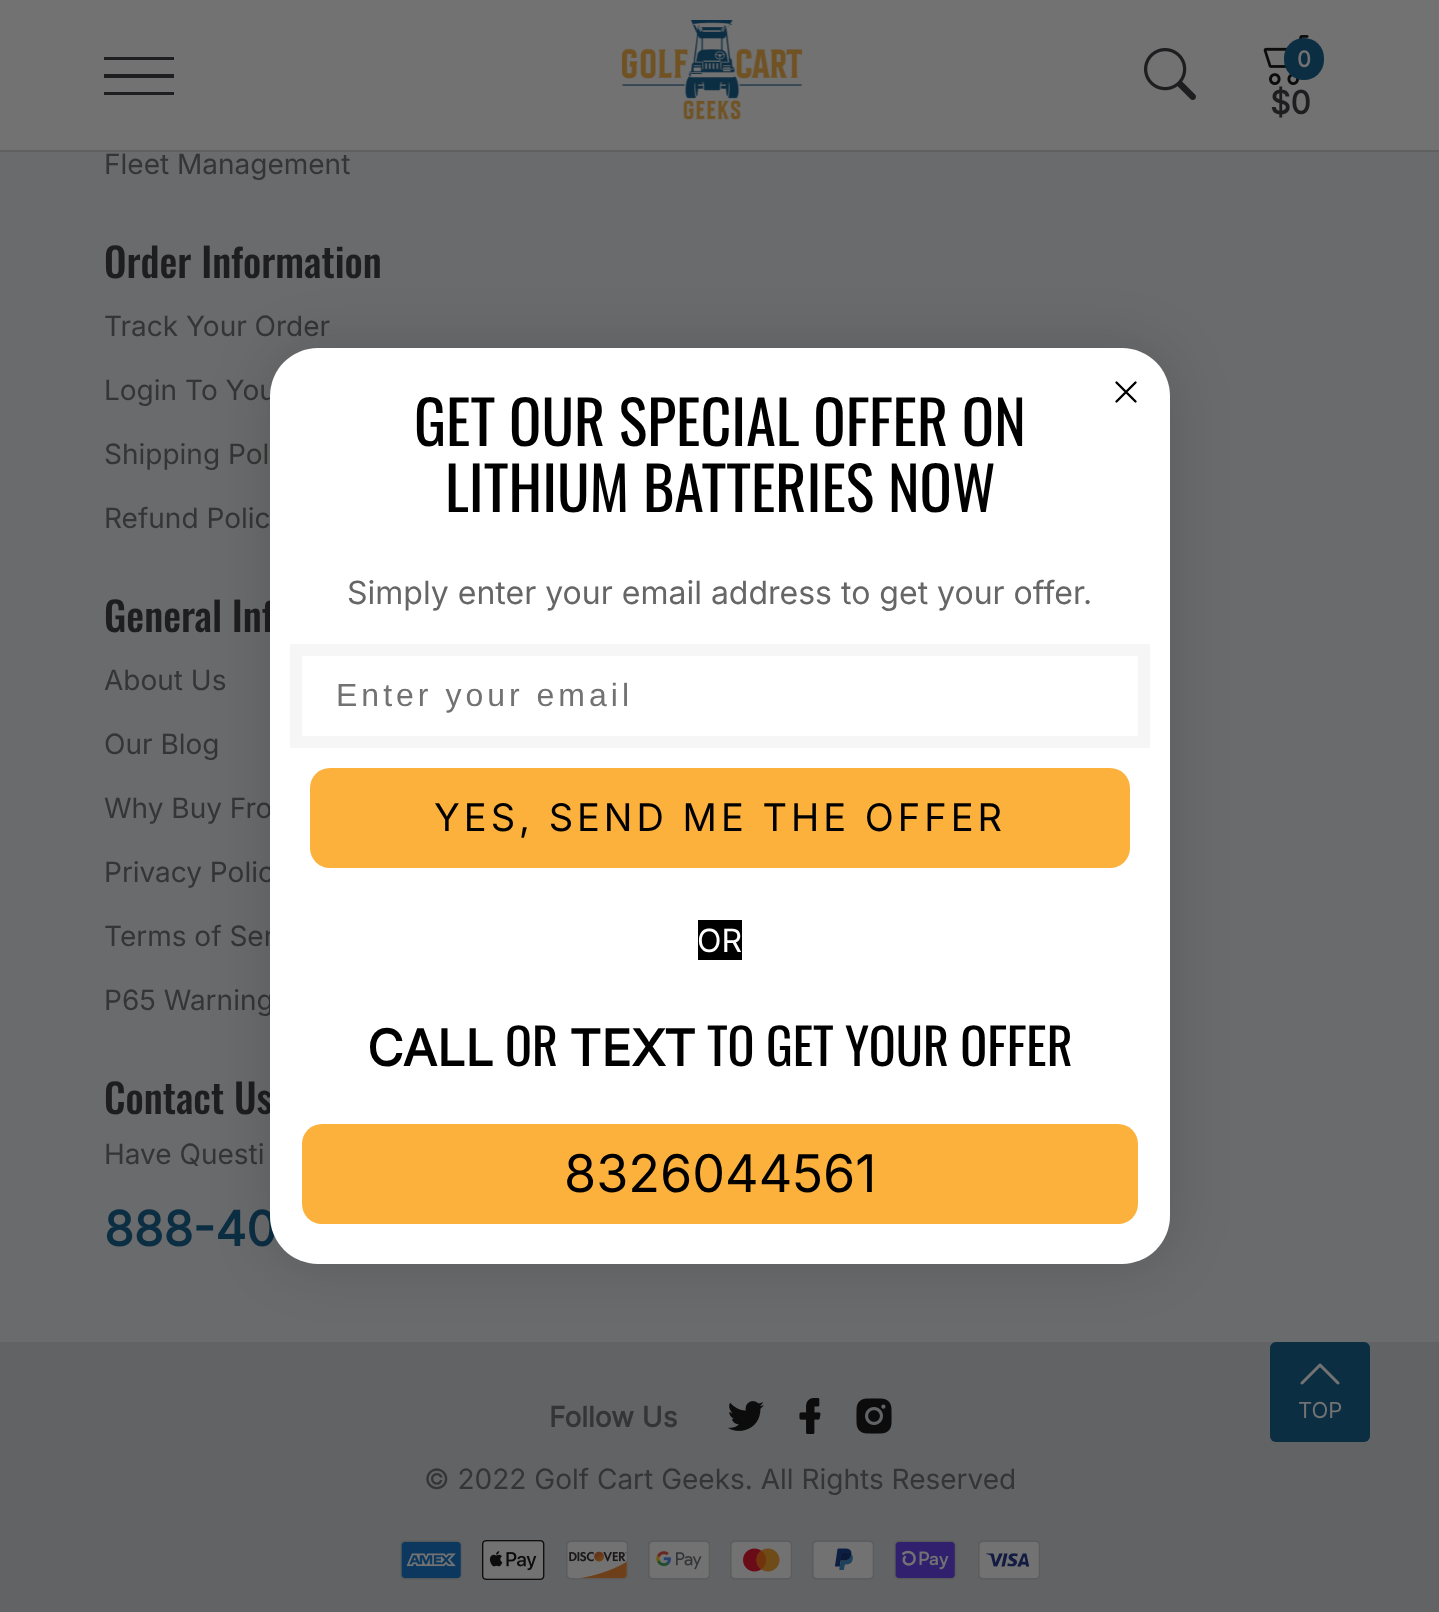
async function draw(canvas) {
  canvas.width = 1439
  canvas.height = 1612
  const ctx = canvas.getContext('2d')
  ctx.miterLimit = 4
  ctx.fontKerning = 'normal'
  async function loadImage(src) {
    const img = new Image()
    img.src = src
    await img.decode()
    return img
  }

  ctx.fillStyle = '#6a6b6c'
  ctx.fillRect(0, 0, 1439, 1612)
  ctx.fillStyle = '#727272'
  ctx.fillRect(0, 0, 1439, 150)
  ctx.fillStyle = '#606060'
  ctx.fillRect(0, 150, 1439, 2)
  ctx.fillStyle = '#1e1e20'
  ctx.fillRect(104, 57, 70, 3)
  ctx.fillRect(104, 74, 70, 4)
  ctx.fillRect(104, 92, 70, 3)
  ctx.drawImage(await loadImage('image0.png'), 622, 20, 181, 100)
  ctx.drawImage(await loadImage('image1.png'), 1144, 48, 52, 52)
  ctx.drawImage(await loadImage('image2.png'), 1263, 35, 46, 50)
  ctx.fillStyle = '#0c2e43'
  ctx.beginPath()
  ctx.roundRect(1284, 38, 40, 42, 20)
  ctx.fill()
  ctx.font = 'bold 22px Inter'
  ctx.fillStyle = '#727272'
  ctx.fillText('0', 1297, 67)
  ctx.font = 'bold 32px Inter'
  ctx.fillStyle = '#1e1e20'
  ctx.fillText('$0', 1270, 114)
  ctx.font = '28px Inter'
  ctx.fillStyle = '#353535'
  ctx.fillText('Fleet Management', 104, 174)
  ctx.font = '500 40px Oswald'
  ctx.fillStyle = '#1e1e20'
  ctx.fillText('Order Information', 104, 278)
  ctx.font = '28px Inter'
  ctx.fillStyle = '#353535'
  ctx.fillText('Track Your Order', 104, 336)
  ctx.fillText('Login To You', 104, 400)
  ctx.fillText('Shipping Pol', 104, 464)
  ctx.fillText('Refund Polic', 104, 528)
  ctx.font = '500 40px Oswald'
  ctx.fillStyle = '#1e1e20'
  ctx.fillText('General Inf', 104, 632)
  ctx.font = '28px Inter'
  ctx.fillStyle = '#353535'
  ctx.fillText('About Us', 104, 690)
  ctx.fillText('Our Blog', 104, 754)
  ctx.fillText('Why Buy Fro', 104, 818)
  ctx.fillText('Privacy Polic', 104, 882)
  ctx.fillText('Terms of Ser', 104, 946)
  ctx.fillText('P65 Warning', 104, 1010)
  ctx.font = '500 40px Oswald'
  ctx.fillStyle = '#1e1e20'
  ctx.fillText('Contact Us', 104, 1114)
  ctx.font = '28px Inter'
  ctx.fillStyle = '#353535'
  ctx.fillText('Have Questi', 104, 1164)
  ctx.font = 'bold 48px Inter'
  ctx.fillStyle = '#0c2e43'
  ctx.fillText('888-40', 104, 1246)
  ctx.fillStyle = '#626364'
  ctx.fillRect(0, 1342, 1439, 270)
  ctx.font = 'bold 28px Inter'
  ctx.fillStyle = '#353535'
  ctx.fillText('Follow Us', 549, 1427)
  ctx.drawImage(await loadImage('image3.png'), 728, 1401, 36, 30)
  ctx.drawImage(await loadImage('image4.png'), 799, 1398, 22, 36)
  ctx.drawImage(await loadImage('image5.png'), 856, 1398, 36, 36)
  ctx.font = '28px Inter'
  ctx.fillText('© 2022 Golf Cart Geeks. All Rights Reserved', 424, 1489)
  ctx.drawImage(await loadImage('image6.png'), 400, 1540, 62, 40)
  ctx.drawImage(await loadImage('image7.png'), 482, 1540, 63, 40)
  ctx.drawImage(await loadImage('image8.png'), 566, 1540, 62, 40)
  ctx.drawImage(await loadImage('image9.png'), 648, 1540, 62, 40)
  ctx.drawImage(await loadImage('image10.png'), 730, 1540, 62, 40)
  ctx.drawImage(await loadImage('image11.png'), 812, 1540, 62, 40)
  ctx.drawImage(await loadImage('image12.png'), 894, 1540, 63, 40)
  ctx.drawImage(await loadImage('image13.png'), 978, 1540, 62, 40)
  ctx.fillStyle = '#00000026'
  ctx.filter = 'blur(30px)'
  ctx.beginPath()
  ctx.roundRect(270, 348, 900, 916, 48)
  ctx.fill()
  ctx.filter = 'none'
  ctx.fillStyle = '#fff'
  ctx.beginPath()
  ctx.roundRect(270, 348, 900, 916, 48)
  ctx.fill()
  ctx.beginPath()
  ctx.moveTo(1116.5, 382.5)
  ctx.lineTo(1135.5, 401.5)
  ctx.moveTo(1116.5, 401.5)
  ctx.lineTo(1135.5, 382.5)
  ctx.closePath()
  ctx.strokeStyle = '#000'
  ctx.lineWidth = 2.4
  ctx.lineCap = 'round'
  ctx.lineJoin = 'round'
  ctx.stroke()
  ctx.font = '60px Oswald'
  ctx.fillStyle = '#000'
  ctx.fillText('GET OUR SPECIAL OFFER ON', 414, 446)
  ctx.fillText('LITHIUM BATTERIES NOW', 445, 512)
  ctx.font = '32px Inter'
  ctx.fillStyle = '#666'
  ctx.fillText('Simply enter your email address to get your offer.', 347, 604)
  ctx.fillStyle = '#f6f6f6'
  ctx.fillRect(290, 644, 860, 104)
  ctx.fillStyle = '#fff'
  ctx.fillRect(302, 656, 836, 80)
  ctx.letterSpacing = '4px'
  ctx.font = '32px Liberation Sans'
  ctx.fillStyle = '#727272'
  ctx.fillText('Enter your email', 336, 706)
  ctx.fillStyle = '#fbb13b'
  ctx.beginPath()
  ctx.roundRect(310, 768, 820, 100, 20)
  ctx.fill()
  ctx.font = '38px Inter'
  ctx.fillStyle = '#000'
  ctx.fillText('YES, SEND ME THE OFFER', 434, 831)
  ctx.fillRect(698, 920, 44, 40)
  ctx.letterSpacing = '0px'
  ctx.font = '32px Inter'
  ctx.fillStyle = '#fff'
  ctx.fillText('OR', 697, 952)
  ctx.font = 'bold 50px Inter'
  ctx.fillStyle = '#000'
  ctx.fillText('CALL', 367, 1066)
  ctx.font = '50px Oswald'
  ctx.fillText('OR', 505, 1066)
  ctx.font = 'bold 50px Inter'
  ctx.fillText('TEXT', 569, 1066)
  ctx.font = '50px Oswald'
  ctx.fillText('TO GET YOUR OFFER', 707, 1066)
  ctx.fillStyle = '#fbb13b'
  ctx.beginPath()
  ctx.roundRect(302, 1124, 836, 100, 20)
  ctx.fill()
  ctx.font = '52px Inter'
  ctx.fillStyle = '#000'
  ctx.fillText('8326044561', 564, 1192)
  ctx.fillStyle = '#0c2e43'
  ctx.beginPath()
  ctx.roundRect(1270, 1342, 100, 100, 6)
  ctx.fill()
  ctx.drawImage(await loadImage('image14.png'), 1300, 1363, 40, 22)
  ctx.font = '22px Inter'
  ctx.fillStyle = '#727272'
  ctx.fillText('TOP', 1298, 1418)
}

draw(document.querySelector('canvas'))
